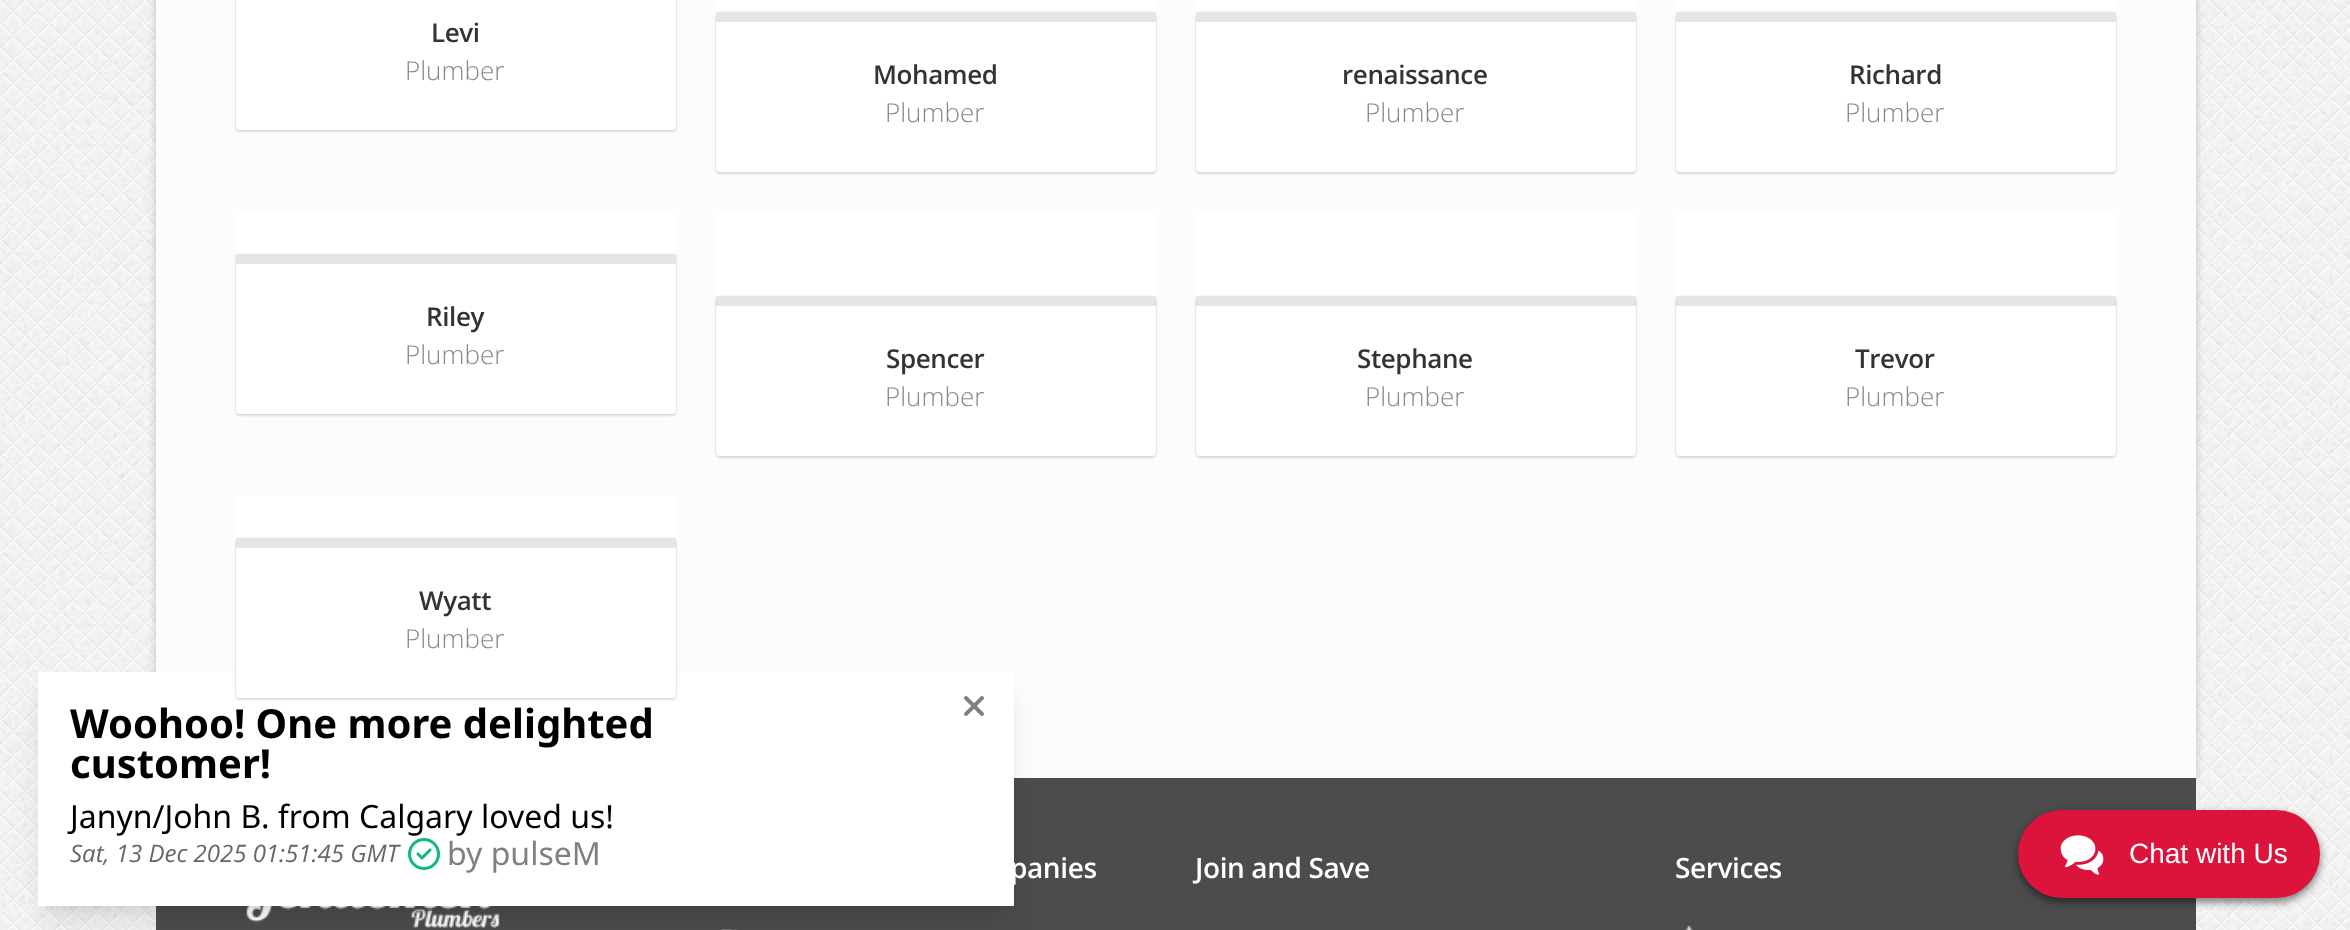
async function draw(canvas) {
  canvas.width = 2350
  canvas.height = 930
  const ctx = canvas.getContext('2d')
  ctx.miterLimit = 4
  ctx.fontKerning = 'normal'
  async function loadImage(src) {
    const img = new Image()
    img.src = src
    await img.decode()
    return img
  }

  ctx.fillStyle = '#fff'
  ctx.fillRect(0, 0, 2350, 930)
  ctx.drawImage(await loadImage('image0.png'), 0, 0, 2350, 930)
  ctx.fillStyle = '#00000033'
  ctx.filter = 'blur(4px)'
  ctx.beginPath()
  ctx.rect(156, -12, 2040, 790)
  ctx.fill()
  ctx.filter = 'none'
  ctx.fillStyle = '#fcfcfc'
  ctx.fillRect(156, 0, 2040, 778)
  ctx.fillStyle = '#4c4c4c'
  ctx.fillRect(156, 778, 2040, 152)
  ctx.drawImage(await loadImage('image5.png'), 243, 906, 257, 22)
  ctx.fillStyle = '#0000001a'
  ctx.filter = 'blur(6px)'
  ctx.beginPath()
  ctx.rect(46, 688, 960, 218)
  ctx.fill()
  ctx.filter = 'none'
  ctx.drawImage(await loadImage('image3.png'), 720, 929, 17, 1)
  ctx.filter = 'blur(15px)'
  ctx.beginPath()
  ctx.rect(44, 698, 964, 222)
  ctx.fill()
  ctx.filter = 'none'
  ctx.fillStyle = '#fff'
  ctx.fillRect(38, 672, 976, 234)
  ctx.font = 'bold 40px Noto Sans'
  ctx.fillStyle = '#000'
  ctx.fillText('Woohoo! One more delighted', 70, 738)
  ctx.fillText('customer!', 70, 778)
  ctx.font = '32px Noto Sans'
  ctx.fillText('Janyn/John B. from Calgary loved us!', 70, 828)
  ctx.font = 'italic 24px Open Sans'
  ctx.fillStyle = '#666'
  ctx.fillText('Sat, 13 Dec 2025 01:51:45 GMT', 70, 862)
  ctx.drawImage(await loadImage('image1.png'), 408, 838, 32, 32)
  ctx.font = '32px Noto Sans'
  ctx.fillStyle = '#808080'
  ctx.fillText('by pulseM', 447, 865)
  ctx.drawImage(await loadImage('image2.png'), 964, 696, 20, 20)
  ctx.fillStyle = '#fff'
  ctx.fillRect(236, 126, 440, 4)
  ctx.fillStyle = '#0000001a'
  ctx.filter = 'blur(1px)'
  ctx.beginPath()
  ctx.roundRect(236, -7, 440, 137, 4)
  ctx.fill()
  ctx.filter = 'none'
  ctx.fillStyle = '#0000001f'
  ctx.filter = 'blur(1px)'
  ctx.beginPath()
  ctx.roundRect(236, -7, 440, 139, 4)
  ctx.fill()
  ctx.filter = 'none'
  ctx.fillStyle = '#fff'
  ctx.beginPath()
  ctx.moveTo(236, -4)
  ctx.lineTo(676, -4)
  ctx.lineTo(676, 126)
  ctx.bezierCurveTo(676, 128, 674, 130, 672, 130)
  ctx.lineTo(240, 130)
  ctx.bezierCurveTo(238, 130, 236, 128, 236, 126)
  ctx.closePath()
  ctx.fill()
  ctx.letterSpacing = '-0.4px'
  ctx.font = '600 26px Open Sans'
  ctx.fillStyle = '#333'
  ctx.fillText('Levi', 431, 42)
  ctx.letterSpacing = '0px'
  ctx.font = '300 26px Open Sans'
  ctx.fillStyle = '#888'
  ctx.fillText('Plumber', 405, 80)
  ctx.fillStyle = '#fff'
  ctx.fillRect(716, 0, 440, 172)
  ctx.fillStyle = '#0000001a'
  ctx.filter = 'blur(1px)'
  ctx.beginPath()
  ctx.roundRect(716, 12, 440, 160, 4)
  ctx.fill()
  ctx.filter = 'none'
  ctx.fillStyle = '#0000001f'
  ctx.filter = 'blur(1px)'
  ctx.beginPath()
  ctx.roundRect(716, 14, 440, 160, 4)
  ctx.fill()
  ctx.filter = 'none'
  ctx.fillStyle = '#fff'
  ctx.beginPath()
  ctx.roundRect(716, 12, 440, 160, [0, 0, 4, 4])
  ctx.fill()
  ctx.fillStyle = '#e5e5e5'
  ctx.fillRect(716, 12, 440, 10)
  ctx.letterSpacing = '-0.4px'
  ctx.font = '600 26px Open Sans'
  ctx.fillStyle = '#333'
  ctx.fillText('Mohamed', 873, 84)
  ctx.letterSpacing = '0px'
  ctx.font = '300 26px Open Sans'
  ctx.fillStyle = '#888'
  ctx.fillText('Plumber', 885, 122)
  ctx.fillStyle = '#fff'
  ctx.fillRect(1196, 0, 440, 172)
  ctx.fillStyle = '#0000001a'
  ctx.filter = 'blur(1px)'
  ctx.beginPath()
  ctx.roundRect(1196, 12, 440, 160, 4)
  ctx.fill()
  ctx.filter = 'none'
  ctx.fillStyle = '#0000001f'
  ctx.filter = 'blur(1px)'
  ctx.beginPath()
  ctx.roundRect(1196, 14, 440, 160, 4)
  ctx.fill()
  ctx.filter = 'none'
  ctx.fillStyle = '#fff'
  ctx.beginPath()
  ctx.roundRect(1196, 12, 440, 160, [0, 0, 4, 4])
  ctx.fill()
  ctx.fillStyle = '#e5e5e5'
  ctx.fillRect(1196, 12, 440, 10)
  ctx.letterSpacing = '-0.4px'
  ctx.font = '600 26px Open Sans'
  ctx.fillStyle = '#333'
  ctx.fillText('renaissance', 1342, 84)
  ctx.letterSpacing = '0px'
  ctx.font = '300 26px Open Sans'
  ctx.fillStyle = '#888'
  ctx.fillText('Plumber', 1365, 122)
  ctx.fillStyle = '#fff'
  ctx.fillRect(1676, 0, 440, 172)
  ctx.fillStyle = '#0000001a'
  ctx.filter = 'blur(1px)'
  ctx.beginPath()
  ctx.roundRect(1676, 12, 440, 160, 4)
  ctx.fill()
  ctx.filter = 'none'
  ctx.fillStyle = '#0000001f'
  ctx.filter = 'blur(1px)'
  ctx.beginPath()
  ctx.roundRect(1676, 14, 440, 160, 4)
  ctx.fill()
  ctx.filter = 'none'
  ctx.fillStyle = '#fff'
  ctx.beginPath()
  ctx.roundRect(1676, 12, 440, 160, [0, 0, 4, 4])
  ctx.fill()
  ctx.fillStyle = '#e5e5e5'
  ctx.fillRect(1676, 12, 440, 10)
  ctx.letterSpacing = '-0.4px'
  ctx.font = '600 26px Open Sans'
  ctx.fillStyle = '#333'
  ctx.fillText('Richard', 1849, 84)
  ctx.letterSpacing = '0px'
  ctx.font = '300 26px Open Sans'
  ctx.fillStyle = '#888'
  ctx.fillText('Plumber', 1845, 122)
  ctx.fillStyle = '#fff'
  ctx.fillRect(236, 212, 440, 202)
  ctx.fillStyle = '#0000001a'
  ctx.filter = 'blur(1px)'
  ctx.beginPath()
  ctx.roundRect(236, 254, 440, 160, 4)
  ctx.fill()
  ctx.filter = 'none'
  ctx.fillStyle = '#0000001f'
  ctx.filter = 'blur(1px)'
  ctx.beginPath()
  ctx.roundRect(236, 256, 440, 160, 4)
  ctx.fill()
  ctx.filter = 'none'
  ctx.fillStyle = '#fff'
  ctx.beginPath()
  ctx.roundRect(236, 254, 440, 160, [0, 0, 4, 4])
  ctx.fill()
  ctx.fillStyle = '#e5e5e5'
  ctx.fillRect(236, 254, 440, 10)
  ctx.letterSpacing = '-0.4px'
  ctx.font = '600 26px Open Sans'
  ctx.fillStyle = '#333'
  ctx.fillText('Riley', 426, 326)
  ctx.letterSpacing = '0px'
  ctx.font = '300 26px Open Sans'
  ctx.fillStyle = '#888'
  ctx.fillText('Plumber', 405, 364)
  ctx.fillStyle = '#fff'
  ctx.fillRect(716, 212, 440, 244)
  ctx.fillStyle = '#0000001a'
  ctx.filter = 'blur(1px)'
  ctx.beginPath()
  ctx.roundRect(716, 296, 440, 160, 4)
  ctx.fill()
  ctx.filter = 'none'
  ctx.fillStyle = '#0000001f'
  ctx.filter = 'blur(1px)'
  ctx.beginPath()
  ctx.roundRect(716, 298, 440, 160, 4)
  ctx.fill()
  ctx.filter = 'none'
  ctx.fillStyle = '#fff'
  ctx.beginPath()
  ctx.roundRect(716, 296, 440, 160, [0, 0, 4, 4])
  ctx.fill()
  ctx.fillStyle = '#e5e5e5'
  ctx.fillRect(716, 296, 440, 10)
  ctx.letterSpacing = '-0.4px'
  ctx.font = '600 26px Open Sans'
  ctx.fillStyle = '#333'
  ctx.fillText('Spencer', 886, 368)
  ctx.letterSpacing = '0px'
  ctx.font = '300 26px Open Sans'
  ctx.fillStyle = '#888'
  ctx.fillText('Plumber', 885, 406)
  ctx.fillStyle = '#fff'
  ctx.fillRect(1196, 212, 440, 244)
  ctx.fillStyle = '#0000001a'
  ctx.filter = 'blur(1px)'
  ctx.beginPath()
  ctx.roundRect(1196, 296, 440, 160, 4)
  ctx.fill()
  ctx.filter = 'none'
  ctx.fillStyle = '#0000001f'
  ctx.filter = 'blur(1px)'
  ctx.beginPath()
  ctx.roundRect(1196, 298, 440, 160, 4)
  ctx.fill()
  ctx.filter = 'none'
  ctx.fillStyle = '#fff'
  ctx.beginPath()
  ctx.roundRect(1196, 296, 440, 160, [0, 0, 4, 4])
  ctx.fill()
  ctx.fillStyle = '#e5e5e5'
  ctx.fillRect(1196, 296, 440, 10)
  ctx.letterSpacing = '-0.4px'
  ctx.font = '600 26px Open Sans'
  ctx.fillStyle = '#333'
  ctx.fillText('Stephane', 1357, 368)
  ctx.letterSpacing = '0px'
  ctx.font = '300 26px Open Sans'
  ctx.fillStyle = '#888'
  ctx.fillText('Plumber', 1365, 406)
  ctx.fillStyle = '#fff'
  ctx.fillRect(1676, 212, 440, 244)
  ctx.fillStyle = '#0000001a'
  ctx.filter = 'blur(1px)'
  ctx.beginPath()
  ctx.roundRect(1676, 296, 440, 160, 4)
  ctx.fill()
  ctx.filter = 'none'
  ctx.fillStyle = '#0000001f'
  ctx.filter = 'blur(1px)'
  ctx.beginPath()
  ctx.roundRect(1676, 298, 440, 160, 4)
  ctx.fill()
  ctx.filter = 'none'
  ctx.fillStyle = '#fff'
  ctx.beginPath()
  ctx.roundRect(1676, 296, 440, 160, [0, 0, 4, 4])
  ctx.fill()
  ctx.fillStyle = '#e5e5e5'
  ctx.fillRect(1676, 296, 440, 10)
  ctx.letterSpacing = '-0.4px'
  ctx.font = '600 26px Open Sans'
  ctx.fillStyle = '#333'
  ctx.fillText('Trevor', 1855, 368)
  ctx.letterSpacing = '0px'
  ctx.font = '300 26px Open Sans'
  ctx.fillStyle = '#888'
  ctx.fillText('Plumber', 1845, 406)
  ctx.fillStyle = '#fff'
  ctx.fillRect(236, 496, 440, 176)
  ctx.fillStyle = '#0000001a'
  ctx.filter = 'blur(1px)'
  ctx.beginPath()
  ctx.roundRect(236, 538, 440, 160, 4)
  ctx.fill()
  ctx.filter = 'none'
  ctx.fillStyle = '#0000001f'
  ctx.filter = 'blur(1px)'
  ctx.beginPath()
  ctx.roundRect(236, 540, 440, 160, 4)
  ctx.fill()
  ctx.filter = 'none'
  ctx.fillStyle = '#fff'
  ctx.beginPath()
  ctx.roundRect(236, 538, 440, 160, [0, 0, 4, 4])
  ctx.fill()
  ctx.fillStyle = '#e5e5e5'
  ctx.fillRect(236, 538, 440, 10)
  ctx.letterSpacing = '-0.4px'
  ctx.font = '600 26px Open Sans'
  ctx.fillStyle = '#333'
  ctx.fillText('Wyatt', 419, 610)
  ctx.letterSpacing = '0px'
  ctx.font = '300 26px Open Sans'
  ctx.fillStyle = '#888'
  ctx.fillText('Plumber', 405, 648)
  ctx.letterSpacing = '-0.4px'
  ctx.font = '600 28px Open Sans'
  ctx.fillStyle = '#fff'
  ctx.fillText('panies', 1010, 878)
  ctx.fillText('Join and Save', 1195, 878)
  ctx.fillText('Services', 1675, 878)
  ctx.drawImage(await loadImage('image4.png'), 1685, 926, 8, 4)
  ctx.fillStyle = '#00000080'
  ctx.filter = 'blur(4px)'
  ctx.beginPath()
  ctx.roundRect(2018, 814, 302, 88, 44)
  ctx.fill()
  ctx.filter = 'none'
  ctx.fillStyle = '#dc143c'
  ctx.beginPath()
  ctx.roundRect(2018, 810, 302, 88, 44)
  ctx.fill()
  ctx.drawImage(await loadImage('image6.png'), 2060, 835, 44, 40)
  ctx.letterSpacing = '0px'
  ctx.font = '28px Liberation Sans'
  ctx.fillStyle = '#fff'
  ctx.fillText('Chat with Us', 2129, 863)
}

draw(document.querySelector('canvas'))
